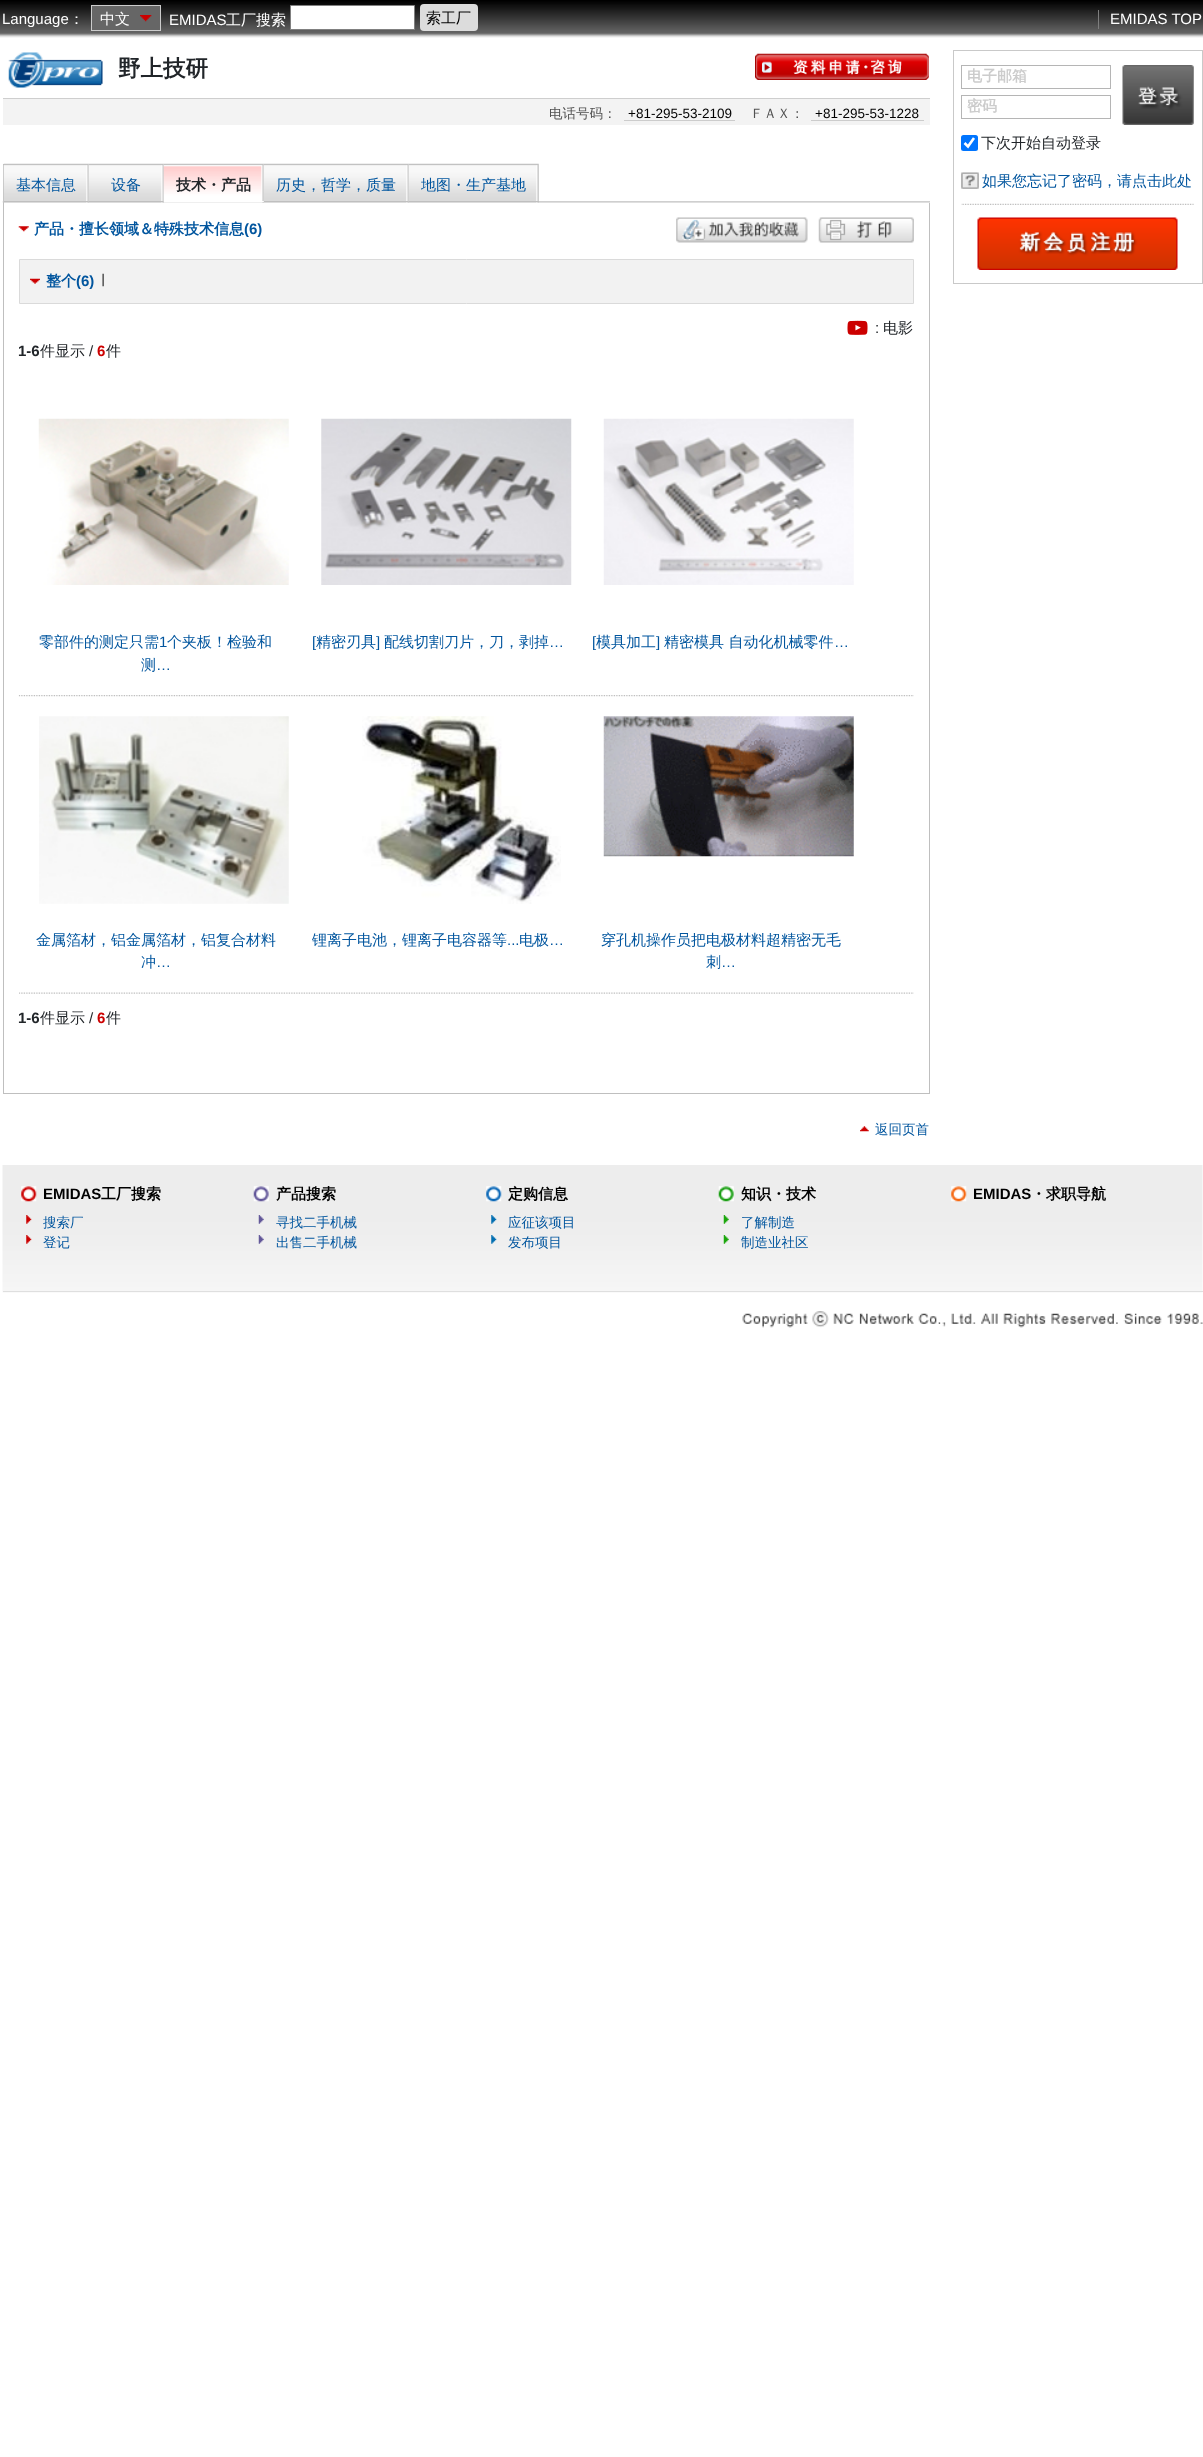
async function draw(canvas) {
  canvas.width = 1203
  canvas.height = 2457
  const ctx = canvas.getContext('2d')
  ctx.miterLimit = 4
  ctx.fontKerning = 'normal'
  async function loadImage(src) {
    const img = new Image()
    img.src = src
    await img.decode()
    return img
  }

  ctx.fillStyle = '#fff'
  ctx.fillRect(0, 0, 1203, 2457)
  ctx.drawImage(await loadImage('image0.png'), 0, 0, 1203, 38)
  ctx.font = '15px Liberation Sans'
  ctx.fillText('Language', 2, 24)
  ctx.font = '500 15px WenQuanYi Zen Hei'
  ctx.fillText('：', 69, 24)
  ctx.fillStyle = '#666'
  ctx.fillRect(92, 6, 68, 24)
  ctx.drawImage(await loadImage('image1.png'), 140, 15, 12, 7)
  ctx.strokeStyle = '#ccc'
  ctx.strokeRect(91.5, 5.5, 69, 25)
  ctx.fillStyle = '#fff'
  ctx.fillText('中文', 100, 24)
  ctx.font = '15px Liberation Sans'
  ctx.fillText('EMIDAS', 169, 25)
  ctx.font = '500 15px WenQuanYi Zen Hei'
  ctx.fillText('工厂搜索', 226, 25)
  ctx.beginPath()
  ctx.rect(290.5, 5.5, 124, 24)
  ctx.fill()
  ctx.strokeStyle = '#808080'
  ctx.stroke()
  ctx.fillStyle = '#dcdcdc'
  ctx.beginPath()
  ctx.roundRect(420, 4, 58, 27, 4)
  ctx.fill()
  ctx.fillStyle = '#000'
  ctx.fillText('索工厂', 426, 23)
  ctx.font = '15px Liberation Sans'
  ctx.fillStyle = '#fff'
  ctx.fillText('EMIDAS TOP', 1110, 24)
  ctx.fillStyle = '#7f7f7f'
  ctx.fillRect(1098, 10, 1, 19)
  ctx.drawImage(await loadImage('image2.png'), 8, 52, 95, 36)
  ctx.font = 'bold 22.5px WenQuanYi Zen Hei'
  ctx.fillStyle = '#212529'
  ctx.fillText('野上技研', 118, 76)
  ctx.drawImage(await loadImage('image3.png'), 755, 53, 174, 27)
  ctx.fillStyle = '#f3f3f3'
  ctx.fillRect(3, 99, 927, 26)
  ctx.fillStyle = '#cecece'
  ctx.fillRect(3, 98, 927, 1)
  ctx.font = '500 13.5px WenQuanYi Zen Hei'
  ctx.fillStyle = '#515151'
  ctx.fillText('电话号码：', 549, 118)
  ctx.font = '13.5px Liberation Sans'
  ctx.fillStyle = '#000'
  ctx.fillText('+81-295-53-2109', 628, 118)
  ctx.fillStyle = '#ccc'
  ctx.fillRect(624, 120, 111, 1)
  ctx.font = '500 13.5px WenQuanYi Zen Hei'
  ctx.fillStyle = '#515151'
  ctx.fillText('ＦＡＸ：', 750, 118)
  ctx.font = '13.5px Liberation Sans'
  ctx.fillStyle = '#000'
  ctx.fillText('+81-295-53-1228', 815, 118)
  ctx.fillStyle = '#ccc'
  ctx.fillRect(811, 120, 113, 1)
  ctx.drawImage(await loadImage('image4.png'), 2, 201, 928, 2)
  ctx.fillStyle = '#bfbfbf'
  ctx.fillRect(3, 164, 1, 39)
  ctx.drawImage(await loadImage('image5.png'), 3, 163, 86, 40)
  ctx.fillRect(4, 201, 85, 1)
  ctx.font = '500 15px WenQuanYi Zen Hei'
  ctx.fillStyle = '#01559e'
  ctx.fillText('基本信息', 16, 190)
  ctx.drawImage(await loadImage('image6.png'), 88, 163, 76, 40)
  ctx.fillStyle = '#bfbfbf'
  ctx.fillRect(89, 201, 75, 1)
  ctx.fillStyle = '#01559e'
  ctx.fillText('设备', 111, 190)
  ctx.drawImage(await loadImage('image7.png'), 163, 163, 101, 40)
  ctx.fillStyle = '#fff'
  ctx.fillRect(262, 201, 2, 1)
  ctx.font = 'bold 15px WenQuanYi Zen Hei'
  ctx.fillStyle = '#212529'
  ctx.fillText('技术・产品', 176, 190)
  ctx.drawImage(await loadImage('image8.png'), 263, 163, 146, 40)
  ctx.fillStyle = '#bfbfbf'
  ctx.fillRect(264, 201, 145, 1)
  ctx.font = '500 15px WenQuanYi Zen Hei'
  ctx.fillStyle = '#01559e'
  ctx.fillText('历史，哲学，质量', 276, 190)
  ctx.drawImage(await loadImage('image9.png'), 408, 163, 131, 40)
  ctx.fillStyle = '#bfbfbf'
  ctx.fillRect(409, 201, 130, 1)
  ctx.fillStyle = '#01559e'
  ctx.fillText('地图・生产基地', 421, 190)
  ctx.fillStyle = '#bfbfbf'
  ctx.fillRect(929, 203, 1, 891)
  ctx.fillRect(3, 1093, 927, 1)
  ctx.fillRect(3, 203, 1, 891)
  ctx.drawImage(await loadImage('image10.png'), 18, 226, 11, 6)
  ctx.font = 'bold 15px WenQuanYi Zen Hei'
  ctx.fillStyle = '#01559e'
  ctx.fillText('产品・擅长领域＆特殊技术信息', 34, 234)
  ctx.font = 'bold 15px Liberation Sans'
  ctx.fillText('(6)', 244, 234)
  ctx.drawImage(await loadImage('image11.png'), 676, 217, 132, 26)
  ctx.drawImage(await loadImage('image12.png'), 818, 217, 96, 26)
  ctx.fillStyle = '#f2f2f2'
  ctx.beginPath()
  ctx.rect(19.5, 259.5, 894, 44)
  ctx.fill()
  ctx.strokeStyle = '#dadada'
  ctx.stroke()
  ctx.drawImage(await loadImage('image13.png'), 102, 273, 2, 14)
  ctx.drawImage(await loadImage('image14.png'), 30, 278, 10, 6)
  ctx.font = 'bold 15px WenQuanYi Zen Hei'
  ctx.fillStyle = '#01559e'
  ctx.fillText('整个', 46, 286)
  ctx.font = 'bold 15px Liberation Sans'
  ctx.fillText('(6)', 76, 286)
  ctx.drawImage(await loadImage('image15.png'), 847, 320, 21, 15)
  ctx.font = '15px Liberation Sans'
  ctx.fillStyle = '#212529'
  ctx.fillText(':', 875, 333)
  ctx.font = '500 15px WenQuanYi Zen Hei'
  ctx.fillText('电影', 883, 333)
  ctx.font = 'bold 15px Liberation Sans'
  ctx.fillText('1-6', 18, 356)
  ctx.font = '500 15px WenQuanYi Zen Hei'
  ctx.fillText('件显示', 40, 356)
  ctx.font = '15px Liberation Sans'
  ctx.fillText('/', 89, 356)
  ctx.font = 'bold 15px Liberation Sans'
  ctx.fillStyle = '#c00'
  ctx.fillText('6', 97, 356)
  ctx.font = '500 15px WenQuanYi Zen Hei'
  ctx.fillStyle = '#212529'
  ctx.fillText('件', 106, 356)
  ctx.drawImage(await loadImage('image16.png'), 18, 695, 896, 2)
  ctx.drawImage(await loadImage('image17.png'), 38, 418, 251, 167)
  ctx.fillStyle = '#01559e'
  ctx.fillText('零部件的测定只需', 39, 647)
  ctx.font = '15px Liberation Sans'
  ctx.fillText('1', 159, 647)
  ctx.font = '500 15px WenQuanYi Zen Hei'
  ctx.fillText('个夹板！检验和', 167, 647)
  ctx.fillText('测', 141, 670)
  ctx.font = '15px Liberation Sans'
  ctx.fillText('…', 156, 670)
  ctx.drawImage(await loadImage('image18.png'), 321, 418, 251, 167)
  ctx.fillText('[', 312, 647)
  ctx.font = '500 15px WenQuanYi Zen Hei'
  ctx.fillText('精密刃具', 316, 647)
  ctx.font = '15px Liberation Sans'
  ctx.fillText(']', 376, 647)
  ctx.font = '500 15px WenQuanYi Zen Hei'
  ctx.fillText('配线切割刀片，刀，剥掉', 384, 647)
  ctx.font = '15px Liberation Sans'
  ctx.fillText('…', 549, 647)
  ctx.drawImage(await loadImage('image19.png'), 603, 418, 251, 167)
  ctx.fillText('[', 592, 647)
  ctx.font = '500 15px WenQuanYi Zen Hei'
  ctx.fillText('模具加工', 596, 647)
  ctx.font = '15px Liberation Sans'
  ctx.fillText(']', 656, 647)
  ctx.font = '500 15px WenQuanYi Zen Hei'
  ctx.fillText('精密模具 自动化机械零件', 664, 647)
  ctx.font = '15px Liberation Sans'
  ctx.fillText('…', 834, 647)
  ctx.drawImage(await loadImage('image20.png'), 19, 992, 895, 2)
  ctx.drawImage(await loadImage('image21.png'), 39, 716, 250, 188)
  ctx.font = '500 15px WenQuanYi Zen Hei'
  ctx.fillText('金属箔材，铝金属箔材，铝复合材料', 36, 945)
  ctx.fillText('冲', 141, 967)
  ctx.font = '15px Liberation Sans'
  ctx.fillText('…', 156, 967)
  ctx.drawImage(await loadImage('image22.png'), 362, 716, 199, 188)
  ctx.font = '500 15px WenQuanYi Zen Hei'
  ctx.fillText('锂离子电池，锂离子电容器等', 312, 945)
  ctx.font = '15px Liberation Sans'
  ctx.fillText('...', 507, 945)
  ctx.font = '500 15px WenQuanYi Zen Hei'
  ctx.fillText('电极', 519, 945)
  ctx.font = '15px Liberation Sans'
  ctx.fillText('…', 549, 945)
  ctx.drawImage(await loadImage('image23.png'), 603, 716, 251, 141)
  ctx.font = '500 15px WenQuanYi Zen Hei'
  ctx.fillText('穿孔机操作员把电极材料超精密无毛', 601, 945)
  ctx.fillText('刺', 706, 967)
  ctx.font = '15px Liberation Sans'
  ctx.fillText('…', 721, 967)
  ctx.font = 'bold 15px Liberation Sans'
  ctx.fillStyle = '#212529'
  ctx.fillText('1-6', 18, 1023)
  ctx.font = '500 15px WenQuanYi Zen Hei'
  ctx.fillText('件显示', 40, 1023)
  ctx.font = '15px Liberation Sans'
  ctx.fillText('/', 89, 1023)
  ctx.font = 'bold 15px Liberation Sans'
  ctx.fillStyle = '#c00'
  ctx.fillText('6', 97, 1023)
  ctx.font = '500 15px WenQuanYi Zen Hei'
  ctx.fillStyle = '#212529'
  ctx.fillText('件', 106, 1023)
  ctx.drawImage(await loadImage('image24.png'), 860, 1126, 9, 6)
  ctx.font = '500 13.5px WenQuanYi Zen Hei'
  ctx.fillStyle = '#01559e'
  ctx.fillText('返回页首', 875, 1134)
  ctx.strokeStyle = '#c9c9c9'
  ctx.strokeRect(953.5, 50.5, 249, 233)
  ctx.drawImage(await loadImage('image25.png'), 961, 203, 233, 2)
  ctx.strokeStyle = '#b5b5b5'
  ctx.strokeRect(961.5, 65.5, 149, 23)
  ctx.font = 'bold 15px WenQuanYi Zen Hei'
  ctx.fillStyle = '#ccc'
  ctx.fillText('电子邮箱', 967, 81)
  ctx.drawImage(await loadImage('image26.png'), 1122, 65, 72, 60)
  ctx.strokeRect(961.5, 95.5, 149, 23)
  ctx.fillText('密码', 967, 111)
  ctx.fillStyle = '#0075ff'
  ctx.beginPath()
  ctx.roundRect(961, 135, 17, 16, 2.5)
  ctx.fill()
  ctx.beginPath()
  ctx.moveTo(964.5, 143)
  ctx.lineTo(968, 146.5)
  ctx.lineTo(974, 138)
  ctx.strokeStyle = '#fff'
  ctx.lineWidth = 2.6
  ctx.stroke()
  ctx.font = '500 15px WenQuanYi Zen Hei'
  ctx.fillStyle = '#212529'
  ctx.fillText('下次开始自动登录', 981, 148)
  ctx.drawImage(await loadImage('image27.png'), 961, 172, 18, 17)
  ctx.fillStyle = '#01559e'
  ctx.fillText('如果您忘记了密码，请点击此处', 982, 186)
  ctx.drawImage(await loadImage('image28.png'), 977, 217, 201, 53)
  ctx.drawImage(await loadImage('image29.png'), 2, 1165, 1201, 128)
  ctx.fillStyle = '#dfdfdf'
  ctx.fillRect(3, 1291, 1200, 1)
  ctx.drawImage(await loadImage('image30.png'), 21, 1186, 16, 16)
  ctx.font = 'bold 15px Liberation Sans'
  ctx.fillStyle = '#000'
  ctx.fillText('EMIDAS', 43, 1199)
  ctx.font = 'bold 15px WenQuanYi Zen Hei'
  ctx.fillText('工厂搜索', 101, 1199)
  ctx.drawImage(await loadImage('image31.png'), 26, 1215, 6, 9)
  ctx.font = '500 13.5px WenQuanYi Zen Hei'
  ctx.fillStyle = '#01559e'
  ctx.fillText('搜索厂', 43, 1227)
  ctx.drawImage(await loadImage('image32.png'), 26, 1235, 6, 9)
  ctx.fillText('登记', 43, 1247)
  ctx.drawImage(await loadImage('image33.png'), 253, 1186, 16, 16)
  ctx.font = 'bold 15px WenQuanYi Zen Hei'
  ctx.fillStyle = '#000'
  ctx.fillText('产品搜索', 276, 1199)
  ctx.drawImage(await loadImage('image34.png'), 258, 1215, 6, 9)
  ctx.font = '500 13.5px WenQuanYi Zen Hei'
  ctx.fillStyle = '#01559e'
  ctx.fillText('寻找二手机械', 276, 1227)
  ctx.drawImage(await loadImage('image35.png'), 258, 1235, 6, 9)
  ctx.fillText('出售二手机械', 276, 1247)
  ctx.drawImage(await loadImage('image36.png'), 486, 1186, 16, 16)
  ctx.font = 'bold 15px WenQuanYi Zen Hei'
  ctx.fillStyle = '#000'
  ctx.fillText('定购信息', 508, 1199)
  ctx.drawImage(await loadImage('image37.png'), 491, 1215, 6, 9)
  ctx.font = '500 13.5px WenQuanYi Zen Hei'
  ctx.fillStyle = '#01559e'
  ctx.fillText('应征该项目', 508, 1227)
  ctx.drawImage(await loadImage('image38.png'), 491, 1235, 6, 9)
  ctx.fillText('发布项目', 508, 1247)
  ctx.drawImage(await loadImage('image39.png'), 718, 1186, 16, 16)
  ctx.font = 'bold 15px WenQuanYi Zen Hei'
  ctx.fillStyle = '#000'
  ctx.fillText('知识・技术', 741, 1199)
  ctx.drawImage(await loadImage('image40.png'), 723, 1215, 6, 9)
  ctx.font = '500 13.5px WenQuanYi Zen Hei'
  ctx.fillStyle = '#01559e'
  ctx.fillText('了解制造', 741, 1227)
  ctx.drawImage(await loadImage('image41.png'), 723, 1235, 6, 9)
  ctx.fillText('制造业社区', 741, 1247)
  ctx.drawImage(await loadImage('image42.png'), 951, 1186, 16, 16)
  ctx.font = 'bold 15px Liberation Sans'
  ctx.fillStyle = '#000'
  ctx.fillText('EMIDAS', 973, 1199)
  ctx.font = 'bold 15px WenQuanYi Zen Hei'
  ctx.fillText('・求职导航', 1031, 1199)
  ctx.drawImage(await loadImage('image43.png'), 742, 1311, 461, 17)
}

draw(document.querySelector('canvas'))
